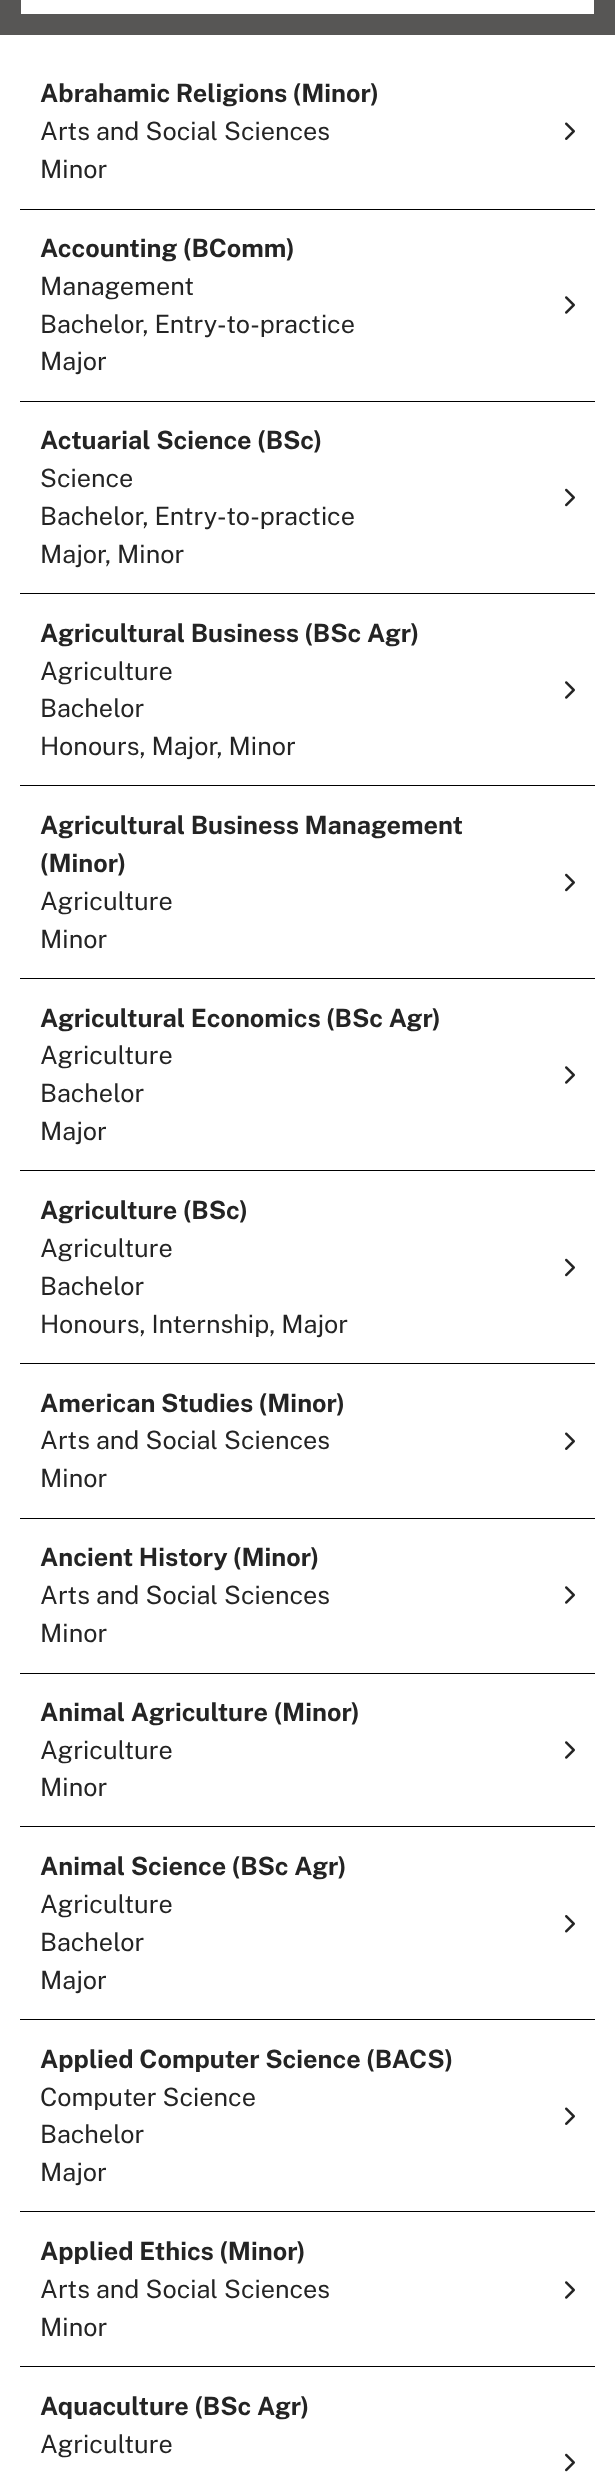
async function draw(canvas) {
  canvas.width = 615
  canvas.height = 2480
  const ctx = canvas.getContext('2d')
  ctx.miterLimit = 4
  ctx.fontKerning = 'normal'
  async function loadImage(src) {
    const img = new Image()
    img.src = src
    await img.decode()
    return img
  }

  ctx.fillStyle = '#fff'
  ctx.fillRect(0, 0, 615, 2480)
  ctx.fillStyle = '#575655'
  ctx.fillRect(0, 0, 615, 35)
  ctx.fillStyle = '#fff'
  ctx.fillRect(21, 0, 573, 14)
  ctx.fillStyle = '#000'
  ctx.fillRect(20, 209, 575, 1)
  ctx.font = 'bold 25.2px Public Sans'
  ctx.fillStyle = '#242424'
  ctx.fillText('Abrahamic Religions (Minor)', 40, 102)
  ctx.font = '25.2px Public Sans'
  ctx.fillText('Arts and Social Sciences', 40, 140)
  ctx.drawImage(await loadImage('image0.png'), 565, 122, 10, 18)
  ctx.fillText('Minor', 40, 178)
  ctx.fillStyle = '#000'
  ctx.fillRect(20, 401, 575, 1)
  ctx.font = 'bold 25.2px Public Sans'
  ctx.fillStyle = '#242424'
  ctx.fillText('Accounting (BComm)', 40, 257)
  ctx.font = '25.2px Public Sans'
  ctx.fillText('Management', 40, 295)
  ctx.drawImage(await loadImage('image1.png'), 565, 296, 10, 18)
  ctx.fillText('Bachelor, Entry-to-practice', 40, 333)
  ctx.fillText('Major', 40, 370)
  ctx.fillStyle = '#000'
  ctx.fillRect(20, 593, 575, 1)
  ctx.font = 'bold 25.2px Public Sans'
  ctx.fillStyle = '#242424'
  ctx.fillText('Actuarial Science (BSc)', 40, 449)
  ctx.font = '25.2px Public Sans'
  ctx.fillText('Science', 40, 487)
  ctx.drawImage(await loadImage('image2.png'), 565, 488, 10, 19)
  ctx.fillText('Bachelor, Entry-to-practice', 40, 525)
  ctx.fillText('Major, Minor', 40, 563)
  ctx.fillStyle = '#000'
  ctx.fillRect(20, 785, 575, 1)
  ctx.font = 'bold 25.2px Public Sans'
  ctx.fillStyle = '#242424'
  ctx.fillText('Agricultural Business (BSc Agr)', 40, 642)
  ctx.font = '25.2px Public Sans'
  ctx.fillText('Agriculture', 40, 680)
  ctx.drawImage(await loadImage('image1.png'), 565, 681, 10, 18)
  ctx.fillText('Bachelor', 40, 717)
  ctx.fillText('Honours, Major, Minor', 40, 755)
  ctx.fillStyle = '#000'
  ctx.fillRect(20, 978, 575, 1)
  ctx.font = 'bold 25.2px Public Sans'
  ctx.fillStyle = '#242424'
  ctx.fillText('Agricultural Business Management', 40, 834)
  ctx.fillText('(Minor)', 40, 872)
  ctx.drawImage(await loadImage('image2.png'), 565, 873, 10, 19)
  ctx.font = '25.2px Public Sans'
  ctx.fillText('Agriculture', 40, 910)
  ctx.fillText('Minor', 40, 948)
  ctx.fillStyle = '#000'
  ctx.fillRect(20, 1170, 575, 1)
  ctx.font = 'bold 25.2px Public Sans'
  ctx.fillStyle = '#242424'
  ctx.fillText('Agricultural Economics (BSc Agr)', 40, 1027)
  ctx.font = '25.2px Public Sans'
  ctx.fillText('Agriculture', 40, 1064)
  ctx.drawImage(await loadImage('image1.png'), 565, 1066, 10, 18)
  ctx.fillText('Bachelor', 40, 1102)
  ctx.fillText('Major', 40, 1140)
  ctx.fillStyle = '#000'
  ctx.fillRect(20, 1363, 575, 1)
  ctx.font = 'bold 25.2px Public Sans'
  ctx.fillStyle = '#242424'
  ctx.fillText('Agriculture (BSc)', 40, 1219)
  ctx.font = '25.2px Public Sans'
  ctx.fillText('Agriculture', 40, 1257)
  ctx.drawImage(await loadImage('image2.png'), 565, 1258, 10, 19)
  ctx.fillText('Bachelor', 40, 1295)
  ctx.fillText('Honours, Internship, Major', 40, 1333)
  ctx.fillStyle = '#000'
  ctx.fillRect(20, 1518, 575, 1)
  ctx.font = 'bold 25.2px Public Sans'
  ctx.fillStyle = '#242424'
  ctx.fillText('American Studies (Minor)', 40, 1412)
  ctx.font = '25.2px Public Sans'
  ctx.fillText('Arts and Social Sciences', 40, 1449)
  ctx.drawImage(await loadImage('image0.png'), 565, 1432, 10, 18)
  ctx.fillText('Minor', 40, 1487)
  ctx.fillStyle = '#000'
  ctx.fillRect(20, 1673, 575, 1)
  ctx.font = 'bold 25.2px Public Sans'
  ctx.fillStyle = '#242424'
  ctx.fillText('Ancient History (Minor)', 40, 1566)
  ctx.font = '25.2px Public Sans'
  ctx.fillText('Arts and Social Sciences', 40, 1604)
  ctx.drawImage(await loadImage('image1.png'), 565, 1586, 10, 18)
  ctx.fillText('Minor', 40, 1642)
  ctx.fillStyle = '#000'
  ctx.fillRect(20, 1826, 575, 1)
  ctx.font = 'bold 25.2px Public Sans'
  ctx.fillStyle = '#242424'
  ctx.fillText('Animal Agriculture (Minor)', 40, 1721)
  ctx.font = '25.2px Public Sans'
  ctx.fillText('Agriculture', 40, 1759)
  ctx.drawImage(await loadImage('image1.png'), 565, 1741, 10, 18)
  ctx.fillText('Minor', 40, 1796)
  ctx.fillStyle = '#000'
  ctx.fillRect(20, 2019, 575, 1)
  ctx.font = 'bold 25.2px Public Sans'
  ctx.fillStyle = '#242424'
  ctx.fillText('Animal Science (BSc Agr)', 40, 1875)
  ctx.font = '25.2px Public Sans'
  ctx.fillText('Agriculture', 40, 1913)
  ctx.drawImage(await loadImage('image3.png'), 565, 1915, 10, 18)
  ctx.fillText('Bachelor', 40, 1951)
  ctx.fillText('Major', 40, 1989)
  ctx.fillStyle = '#000'
  ctx.fillRect(20, 2211, 575, 1)
  ctx.font = 'bold 25.2px Public Sans'
  ctx.fillStyle = '#242424'
  ctx.fillText('Applied Computer Science (BACS)', 40, 2068)
  ctx.font = '25.2px Public Sans'
  ctx.fillText('Computer Science', 40, 2106)
  ctx.drawImage(await loadImage('image0.png'), 565, 2107, 10, 18)
  ctx.fillText('Bachelor', 40, 2143)
  ctx.fillText('Major', 40, 2181)
  ctx.fillStyle = '#000'
  ctx.fillRect(20, 2366, 575, 1)
  ctx.font = 'bold 25.2px Public Sans'
  ctx.fillStyle = '#242424'
  ctx.fillText('Applied Ethics (Minor)', 40, 2260)
  ctx.font = '25.2px Public Sans'
  ctx.fillText('Arts and Social Sciences', 40, 2298)
  ctx.drawImage(await loadImage('image1.png'), 565, 2281, 10, 18)
  ctx.fillText('Minor', 40, 2336)
  ctx.font = 'bold 25.2px Public Sans'
  ctx.fillText('Aquaculture (BSc Agr)', 40, 2415)
  ctx.font = '25.2px Public Sans'
  ctx.fillText('Agriculture', 40, 2453)
  ctx.drawImage(await loadImage('image2.png'), 565, 2453, 10, 19)
}

draw(document.querySelector('canvas'))
